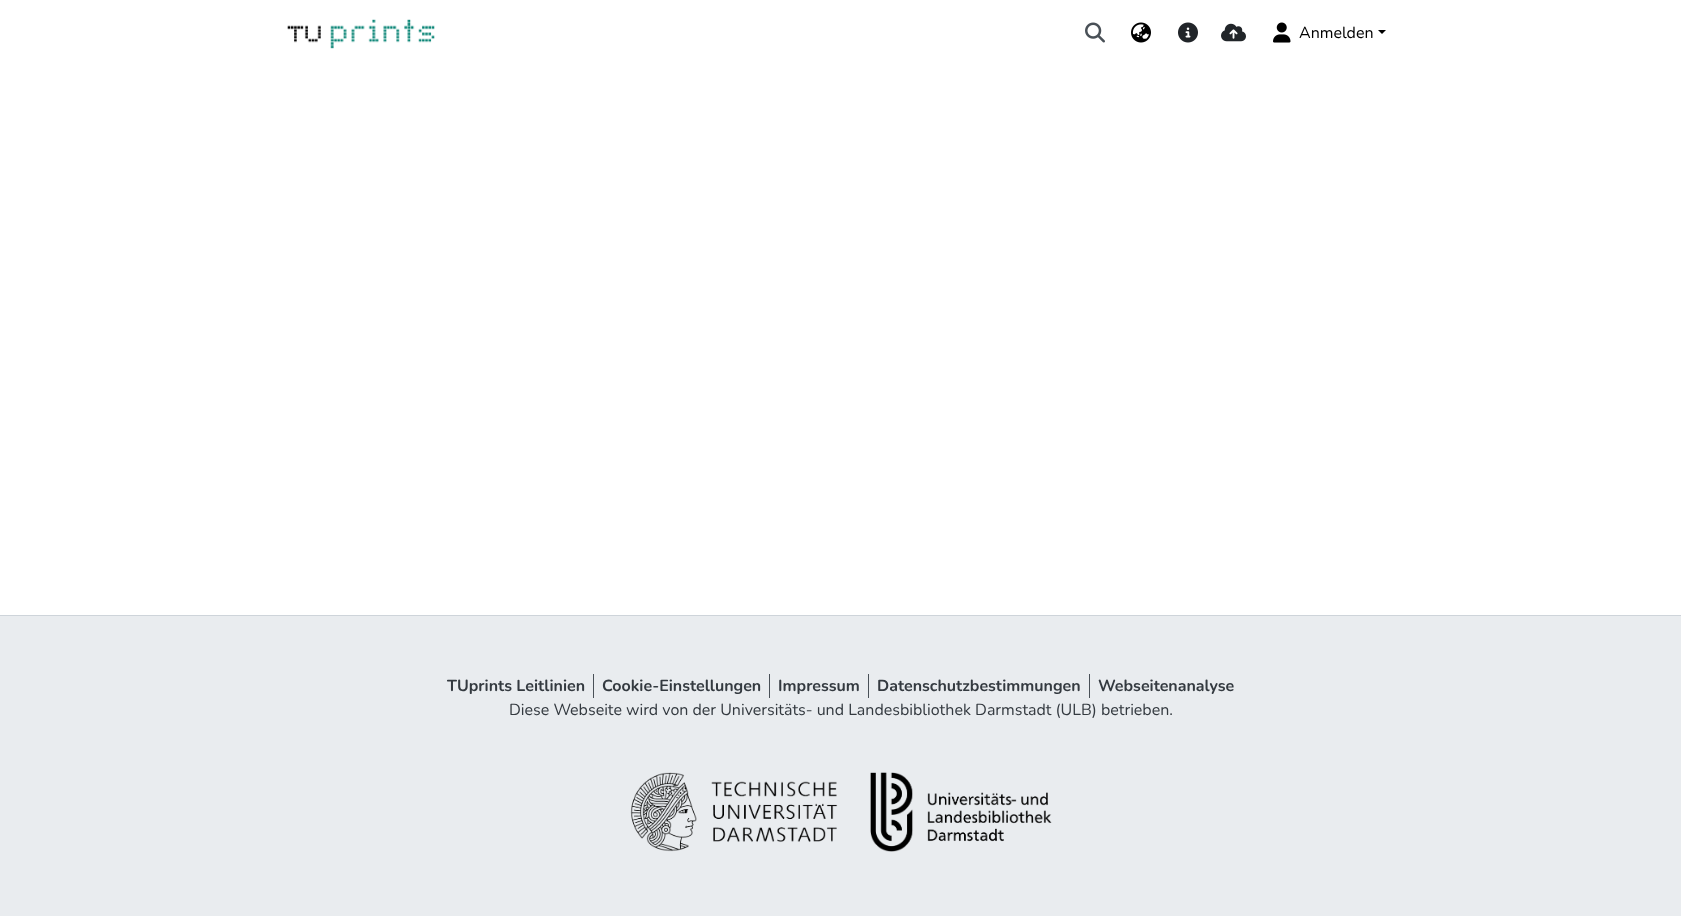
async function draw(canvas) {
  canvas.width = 1681
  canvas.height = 916
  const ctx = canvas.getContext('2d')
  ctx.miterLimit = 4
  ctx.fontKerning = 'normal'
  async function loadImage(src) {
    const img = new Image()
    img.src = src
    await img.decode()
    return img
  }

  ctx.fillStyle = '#fff'
  ctx.fillRect(0, 0, 1681, 916)
  ctx.drawImage(await loadImage('image0.png'), 287, 19, 148, 30)
  ctx.drawImage(await loadImage('image1.png'), 1085, 22, 20, 21)
  ctx.drawImage(await loadImage('image2.png'), 1131, 22, 20, 21)
  ctx.drawImage(await loadImage('image3.png'), 1178, 22, 20, 21)
  ctx.drawImage(await loadImage('image4.png'), 1221, 23, 25, 19)
  ctx.drawImage(await loadImage('image5.png'), 1273, 22, 18, 21)
  ctx.font = '16px Nunito'
  ctx.fillStyle = '#000'
  ctx.fillText('Anmelden', 1299, 38)
  ctx.beginPath()
  ctx.moveTo(1378, 30)
  ctx.lineTo(1386, 30)
  ctx.lineTo(1382, 34)
  ctx.closePath()
  ctx.fill()
  ctx.fillStyle = '#e9ecef'
  ctx.fillRect(0, 616, 1681, 300)
  ctx.fillStyle = '#ced4da'
  ctx.fillRect(0, 615, 1681, 1)
  ctx.font = 'bold 16px Nunito'
  ctx.fillStyle = '#343a40'
  ctx.fillText('TUprints Leitlinien', 447, 691)
  ctx.fillStyle = '#495057'
  ctx.fillRect(593, 674, 1, 24)
  ctx.fillStyle = '#343a40'
  ctx.fillText('Cookie-Einstellungen', 602, 691)
  ctx.fillStyle = '#495057'
  ctx.fillRect(769, 674, 1, 24)
  ctx.fillStyle = '#343a40'
  ctx.fillText('Impressum', 778, 691)
  ctx.fillStyle = '#495057'
  ctx.fillRect(868, 674, 1, 24)
  ctx.fillStyle = '#343a40'
  ctx.fillText('Datenschutzbestimmungen', 877, 691)
  ctx.fillStyle = '#495057'
  ctx.fillRect(1089, 674, 1, 24)
  ctx.fillStyle = '#343a40'
  ctx.fillText('Webseitenanalyse', 1098, 691)
  ctx.font = '16px Nunito'
  ctx.fillText('Diese Webseite wird von der Universitäts- und Landesbibliothek Darmstadt (ULB) betrieben.', 509, 715)
  ctx.drawImage(await loadImage('image6.png'), 630, 772, 208, 80)
  ctx.drawImage(await loadImage('image7.png'), 870, 772, 182, 80)
}

draw(document.querySelector('canvas'))
